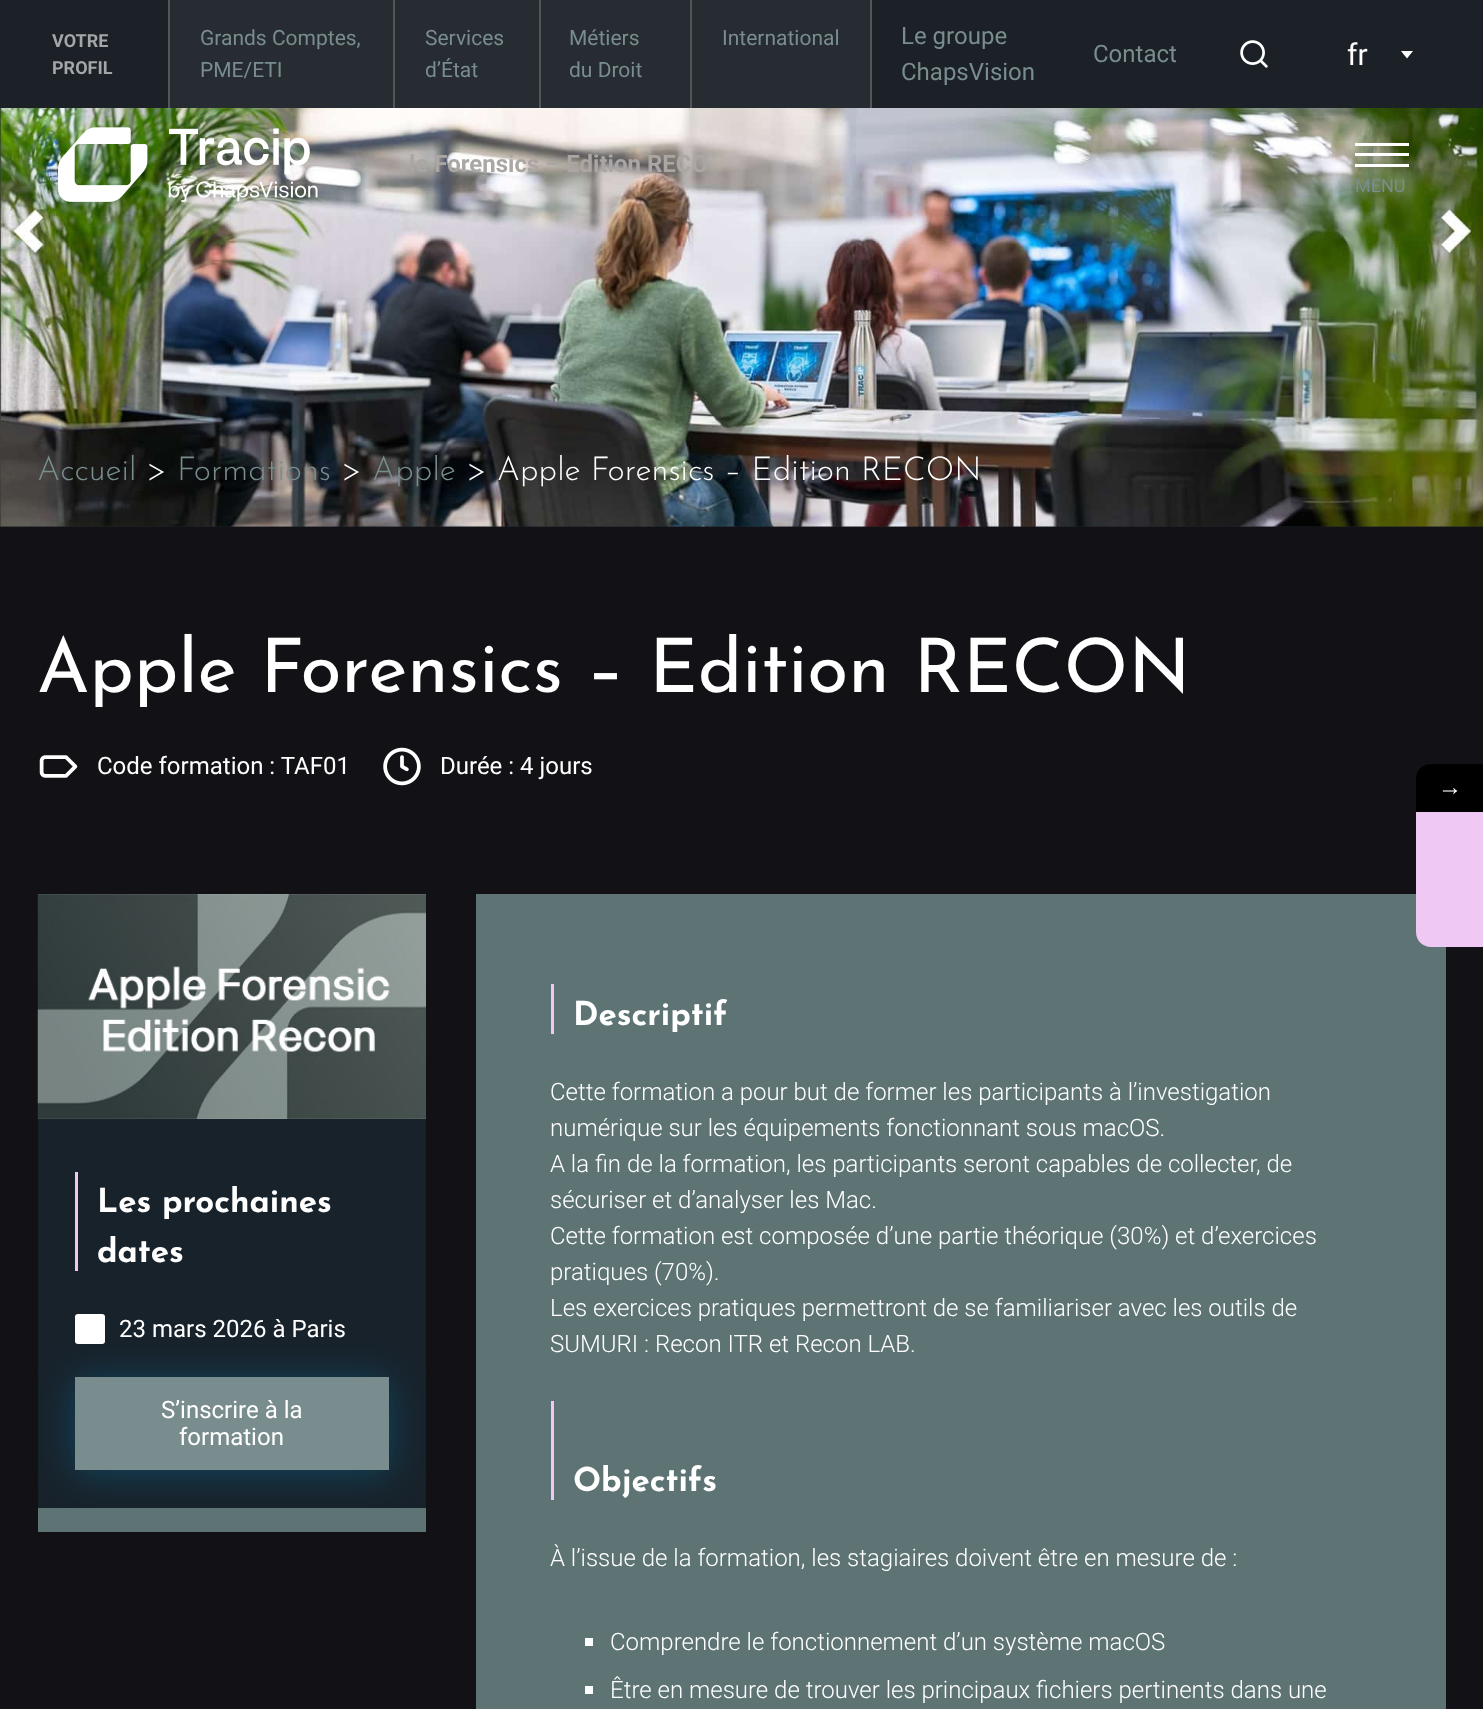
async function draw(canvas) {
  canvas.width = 1483
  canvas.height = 1709
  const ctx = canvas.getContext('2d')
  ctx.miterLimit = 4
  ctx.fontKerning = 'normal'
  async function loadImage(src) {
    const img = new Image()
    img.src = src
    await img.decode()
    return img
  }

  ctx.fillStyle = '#121216'
  ctx.fillRect(0, 0, 1483, 1709)
  ctx.fillStyle = '#1b2126'
  ctx.fillRect(0, 0, 1483, 108)
  ctx.font = 'bold 18px Roboto'
  ctx.fillStyle = '#a4a6a8'
  ctx.fillText('VOTRE', 52, 47)
  ctx.fillText('PROFIL', 52, 74)
  ctx.fillStyle = '#262c31'
  ctx.fillRect(170, 0, 700, 108)
  ctx.fillStyle = '#51565a'
  ctx.fillRect(870, 0, 2, 108)
  ctx.fillRect(168, 0, 2, 108)
  ctx.fillRect(393, 0, 2, 108)
  ctx.font = '21px Roboto'
  ctx.fillStyle = '#798d8e'
  ctx.fillText('Grands Comptes,', 200, 45)
  ctx.fillText('PME/ETI', 200, 77)
  ctx.fillStyle = '#51565a'
  ctx.fillRect(539, 0, 2, 108)
  ctx.fillStyle = '#798d8e'
  ctx.fillText('Services', 425, 45)
  ctx.fillText('d’État', 425, 77)
  ctx.fillStyle = '#51565a'
  ctx.fillRect(690, 0, 2, 108)
  ctx.fillStyle = '#798d8e'
  ctx.fillText('Métiers', 569, 45)
  ctx.fillText('du Droit', 569, 77)
  ctx.fillText('International', 722, 45)
  ctx.font = '24px Roboto'
  ctx.fillText('Le groupe', 901, 44)
  ctx.fillText('ChapsVision', 901, 80)
  ctx.fillText('Contact', 1093, 62)
  ctx.drawImage(await loadImage('image0.png'), 1240, 40, 28, 28)
  ctx.font = '30px Roboto'
  ctx.fillStyle = '#fff'
  ctx.fillText('fr', 1347, 65)
  ctx.beginPath()
  ctx.moveTo(1401, 51)
  ctx.lineTo(1413, 51)
  ctx.lineTo(1407, 58.5)
  ctx.closePath()
  ctx.fill()
  ctx.fillStyle = '#1b2126'
  ctx.fillRect(0, 526, 1483, 1)
  ctx.drawImage(await loadImage('image2.png'), 0, 108, 1483, 419)
  ctx.drawImage(await loadImage('image1.png'), 58, 127, 260, 75)
  ctx.font = 'bold 24px Roboto'
  ctx.fillStyle = '#aaa6a4'
  ctx.fillText('le Forensics – Edition RECO', 409, 172)
  ctx.fillStyle = '#fff'
  ctx.fillRect(1355, 143, 54, 3)
  ctx.fillRect(1355, 153, 54, 3)
  ctx.fillRect(1355, 164, 54, 3)
  ctx.font = '18px Roboto'
  ctx.fillStyle = '#798d8e'
  ctx.fillText('MENU', 1355, 192)
  ctx.font = '300 33px Josefin Sans'
  ctx.fillText('Accueil', 37, 480)
  ctx.fillStyle = '#fff'
  ctx.fillText('>', 146, 480)
  ctx.fillStyle = '#798d8e'
  ctx.fillText('Formations', 177, 480)
  ctx.fillStyle = '#fff'
  ctx.fillText('>', 341, 480)
  ctx.fillStyle = '#798d8e'
  ctx.fillText('Apple', 372, 480)
  ctx.fillStyle = '#fff'
  ctx.fillText('> Apple Forensics – Edition RECON', 466, 480)
  ctx.font = '75px Josefin Sans'
  ctx.fillText('Apple Forensics – Edition RECON', 37, 692)
  ctx.drawImage(await loadImage('image3.png'), 39, 755, 39, 23)
  ctx.font = '24px Roboto'
  ctx.fillText('Code formation : TAF01', 97, 774)
  ctx.drawImage(await loadImage('image4.png'), 383, 747, 38, 39)
  ctx.fillText('Durée : 4 jours', 440, 774)
  ctx.drawImage(await loadImage('image5.png'), 37, 894, 389, 225)
  ctx.fillStyle = '#18222b'
  ctx.fillRect(38, 1119, 388, 389)
  ctx.fillStyle = '#efc9f3'
  ctx.fillRect(75, 1172, 3, 99)
  ctx.font = 'bold 33px Josefin Sans'
  ctx.fillStyle = '#fff'
  ctx.fillText('Les prochaines', 97, 1212)
  ctx.fillText('dates', 97, 1262)
  ctx.fillStyle = '#009dd84d'
  ctx.filter = 'blur(19px)'
  ctx.beginPath()
  ctx.rect(75, 1380, 314, 93)
  ctx.fill()
  ctx.filter = 'none'
  ctx.fillStyle = '#fff'
  ctx.beginPath()
  ctx.roundRect(75, 1314, 30, 30, 3)
  ctx.fill()
  ctx.font = '24px Roboto'
  ctx.fillText('23 mars 2026 à Paris', 119, 1337)
  ctx.fillStyle = '#798d8e'
  ctx.fillRect(75, 1377, 314, 93)
  ctx.fillStyle = '#fff'
  ctx.fillText('S’inscrire à la', 161, 1418)
  ctx.fillText('formation', 179, 1445)
  ctx.fillStyle = '#5d7374'
  ctx.fillRect(38, 1508, 388, 24)
  ctx.fillRect(476, 894, 970, 815)
  ctx.fillStyle = '#efc9f3'
  ctx.fillRect(551, 984, 3, 50)
  ctx.font = 'bold 33px Josefin Sans'
  ctx.fillStyle = '#fff'
  ctx.fillText('Descriptif', 573, 1025)
  ctx.font = '300 24px Roboto'
  ctx.fillText('Cette formation a pour but de former les participants à l’investigation', 550, 1100)
  ctx.fillText('numérique sur les équipements fonctionnant sous macOS.', 550, 1136)
  ctx.fillText('A la fin de la formation, les participants seront capables de collecter, de', 550, 1172)
  ctx.fillText('sécuriser et d’analyser les Mac.', 550, 1208)
  ctx.fillText('Cette formation est composée d’une partie théorique (30%) et d’exercices', 550, 1244)
  ctx.fillText('pratiques (70%).', 550, 1280)
  ctx.fillText('Les exercices pratiques permettront de se familiariser avec les outils de', 550, 1316)
  ctx.fillText('SUMURI : Recon ITR et Recon LAB.', 550, 1352)
  ctx.fillStyle = '#efc9f3'
  ctx.fillRect(551, 1401, 3, 99)
  ctx.font = 'bold 33px Josefin Sans'
  ctx.fillStyle = '#fff'
  ctx.fillText('Objectifs', 573, 1491)
  ctx.font = '300 24px Roboto'
  ctx.fillText('À l’issue de la formation, les stagiaires doivent être en mesure de :', 550, 1566)
  ctx.fillRect(585, 1638, 8, 8)
  ctx.fillText('Comprendre le fonctionnement d’un système macOS', 610, 1650)
  ctx.fillRect(585, 1686, 8, 8)
  ctx.fillText('Être en mesure de trouver les principaux fichiers pertinents dans une', 610, 1698)
  ctx.fillStyle = '#000'
  ctx.beginPath()
  ctx.moveTo(1431, 764)
  ctx.lineTo(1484, 764)
  ctx.lineTo(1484, 812)
  ctx.lineTo(1416, 812)
  ctx.lineTo(1416, 779)
  ctx.bezierCurveTo(1416, 770.5, 1422.5, 764, 1431, 764)
  ctx.closePath()
  ctx.fill()
  ctx.font = '24px Liberation Serif'
  ctx.fillStyle = '#fff'
  ctx.fillText('→', 1438, 795)
  ctx.fillStyle = '#efc9f3'
  ctx.fillRect(1416, 812, 67, 67)
  ctx.beginPath()
  ctx.moveTo(1416, 879)
  ctx.lineTo(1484, 879)
  ctx.lineTo(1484, 947)
  ctx.lineTo(1431, 947)
  ctx.bezierCurveTo(1422.5, 947, 1416, 940.5, 1416, 932)
  ctx.closePath()
  ctx.fill()
}

draw(document.querySelector('canvas'))
